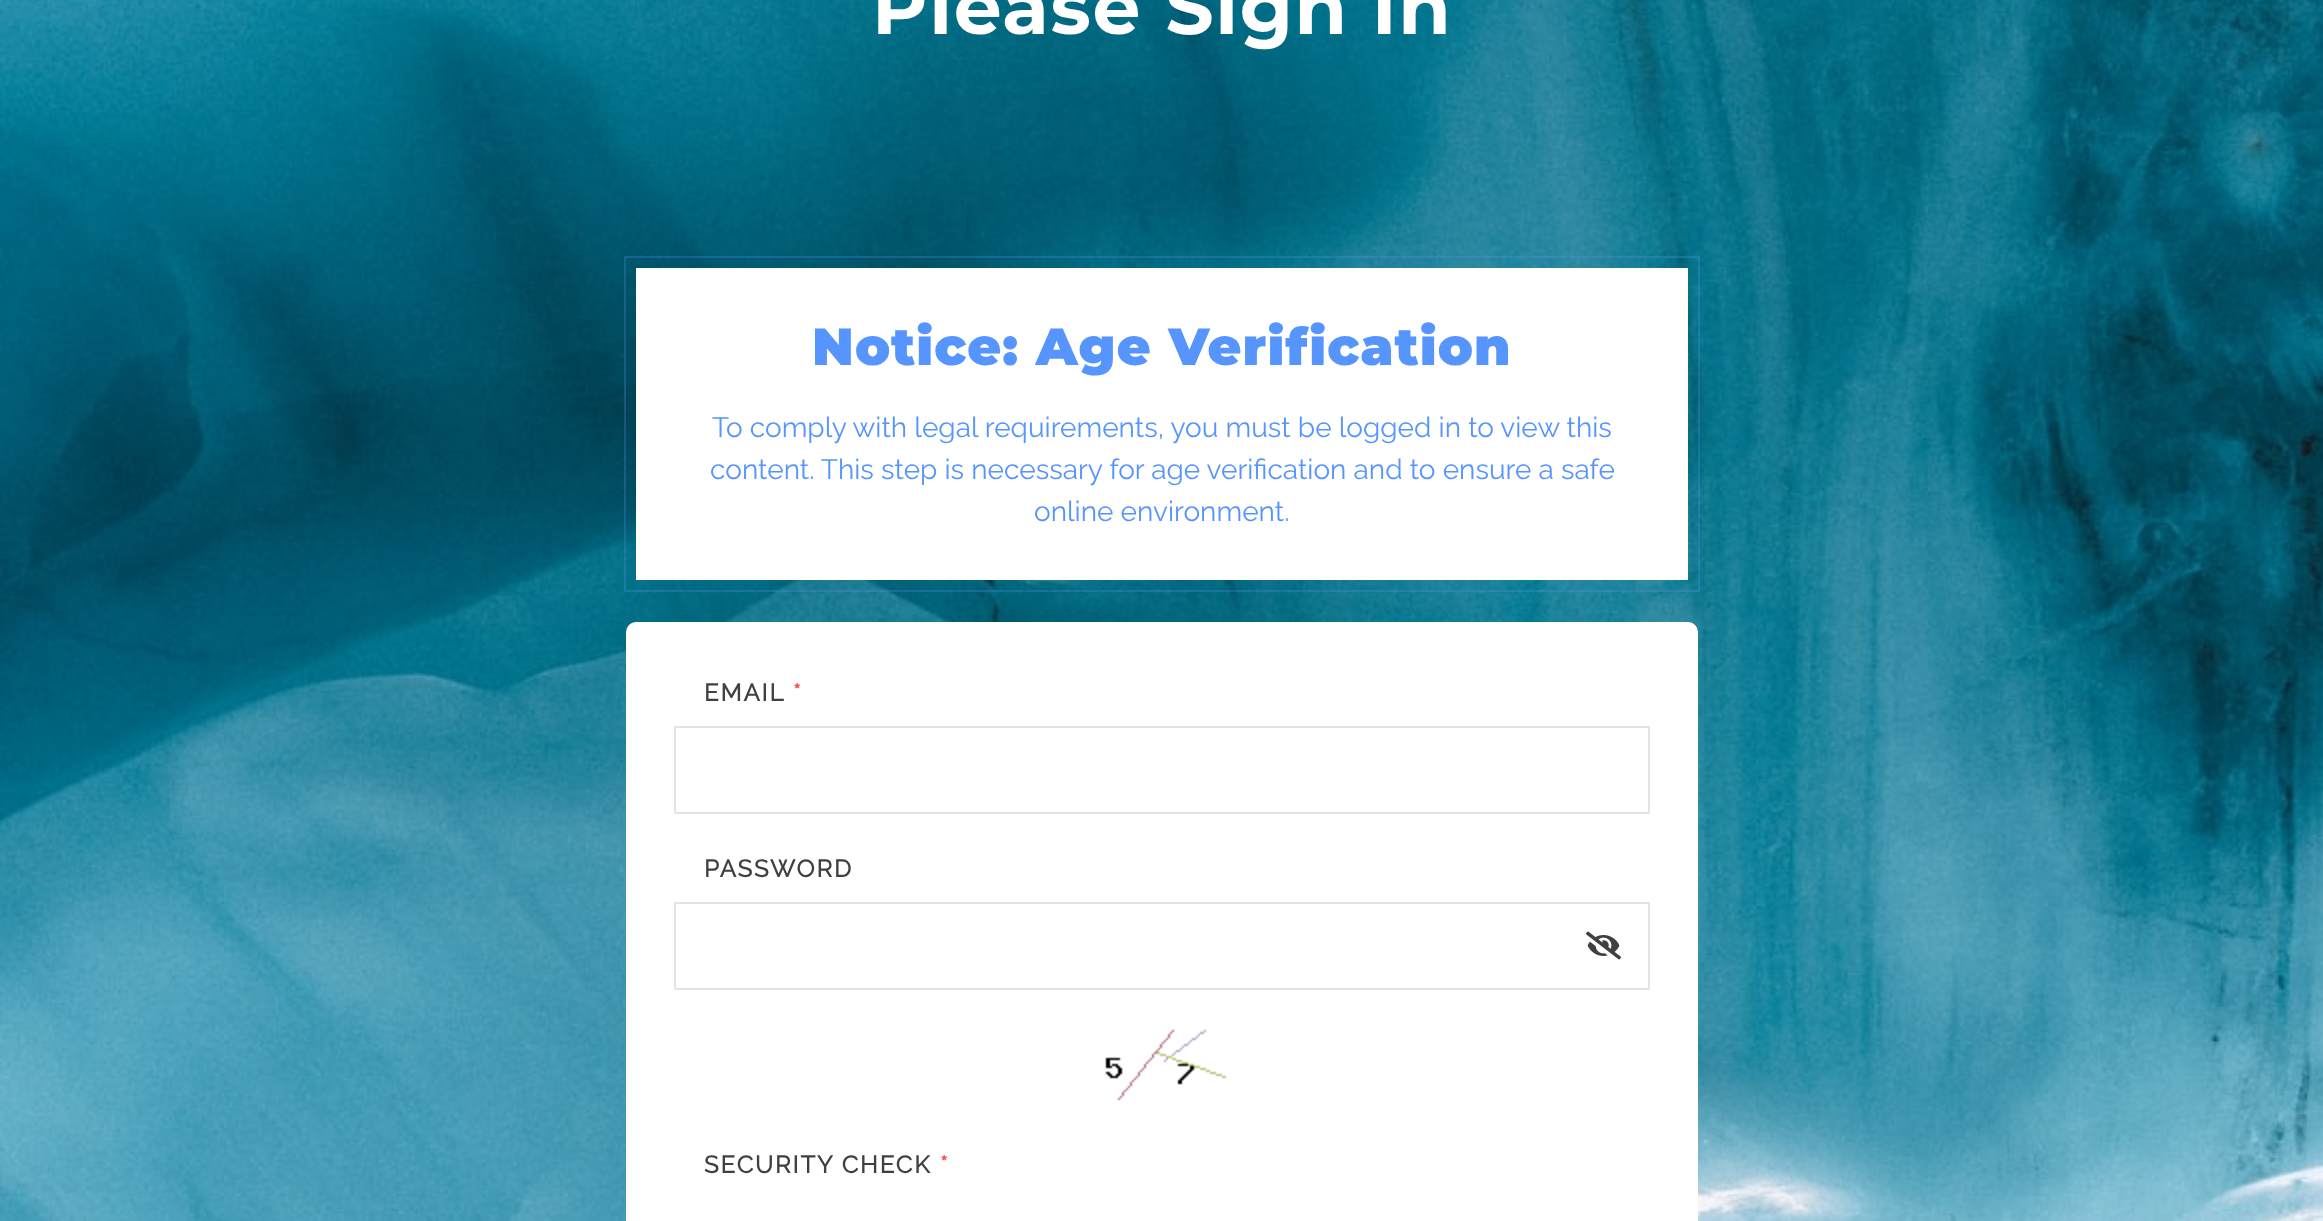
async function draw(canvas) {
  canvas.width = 2323
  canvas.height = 1221
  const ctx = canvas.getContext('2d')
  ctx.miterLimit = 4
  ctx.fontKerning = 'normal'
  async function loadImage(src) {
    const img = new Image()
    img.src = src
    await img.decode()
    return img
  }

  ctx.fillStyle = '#fff'
  ctx.fillRect(0, 0, 2323, 1221)
  ctx.drawImage(await loadImage('image0.png'), 0, 0, 2323, 1221)
  ctx.letterSpacing = '1.6px'
  ctx.font = 'bold 76px Montserrat'
  ctx.fillText('Please Sign In', 872, 34)
  ctx.strokeStyle = '#5695fe40'
  ctx.lineWidth = 2
  ctx.strokeRect(625, 257, 1074, 334)
  ctx.fillRect(636, 268, 1052, 312)
  ctx.letterSpacing = '1.1px'
  ctx.font = '900 52px Montserrat'
  ctx.fillStyle = '#5695fe'
  ctx.fillText('Notice: Age Verification', 812, 365)
  ctx.letterSpacing = '0px'
  ctx.font = '100 28px Raleway'
  ctx.fillText('To comply with legal requirements, you must be logged in to view this', 712, 437)
  ctx.fillText('content. This step is necessary for age verification and to ensure a safe', 710, 479)
  ctx.fillText('online environment.', 1034, 521)
  ctx.fillStyle = '#fff'
  ctx.beginPath()
  ctx.roundRect(626, 622, 1072, 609, 10)
  ctx.fill()
  ctx.letterSpacing = '1.9px'
  ctx.font = 'bold 24px Raleway'
  ctx.fillStyle = '#404040'
  ctx.fillText('EMAIL', 704, 701)
  ctx.fillStyle = '#ff5252'
  ctx.fillText('*', 793, 701)
  ctx.strokeStyle = '#e4e4e4'
  ctx.strokeRect(675, 727, 974, 86)
  ctx.fillStyle = '#404040'
  ctx.fillText('PASSWORD', 704, 877)
  ctx.strokeRect(675, 903, 974, 86)
  ctx.drawImage(await loadImage('image1.png'), 1586, 931, 35, 29)
  ctx.drawImage(await loadImage('image2.png'), 1105, 1029, 122, 72)
  ctx.fillText('SECURITY CHECK', 704, 1173)
  ctx.fillStyle = '#ff5252'
  ctx.fillText('*', 940, 1173)
}

draw(document.querySelector('canvas'))
